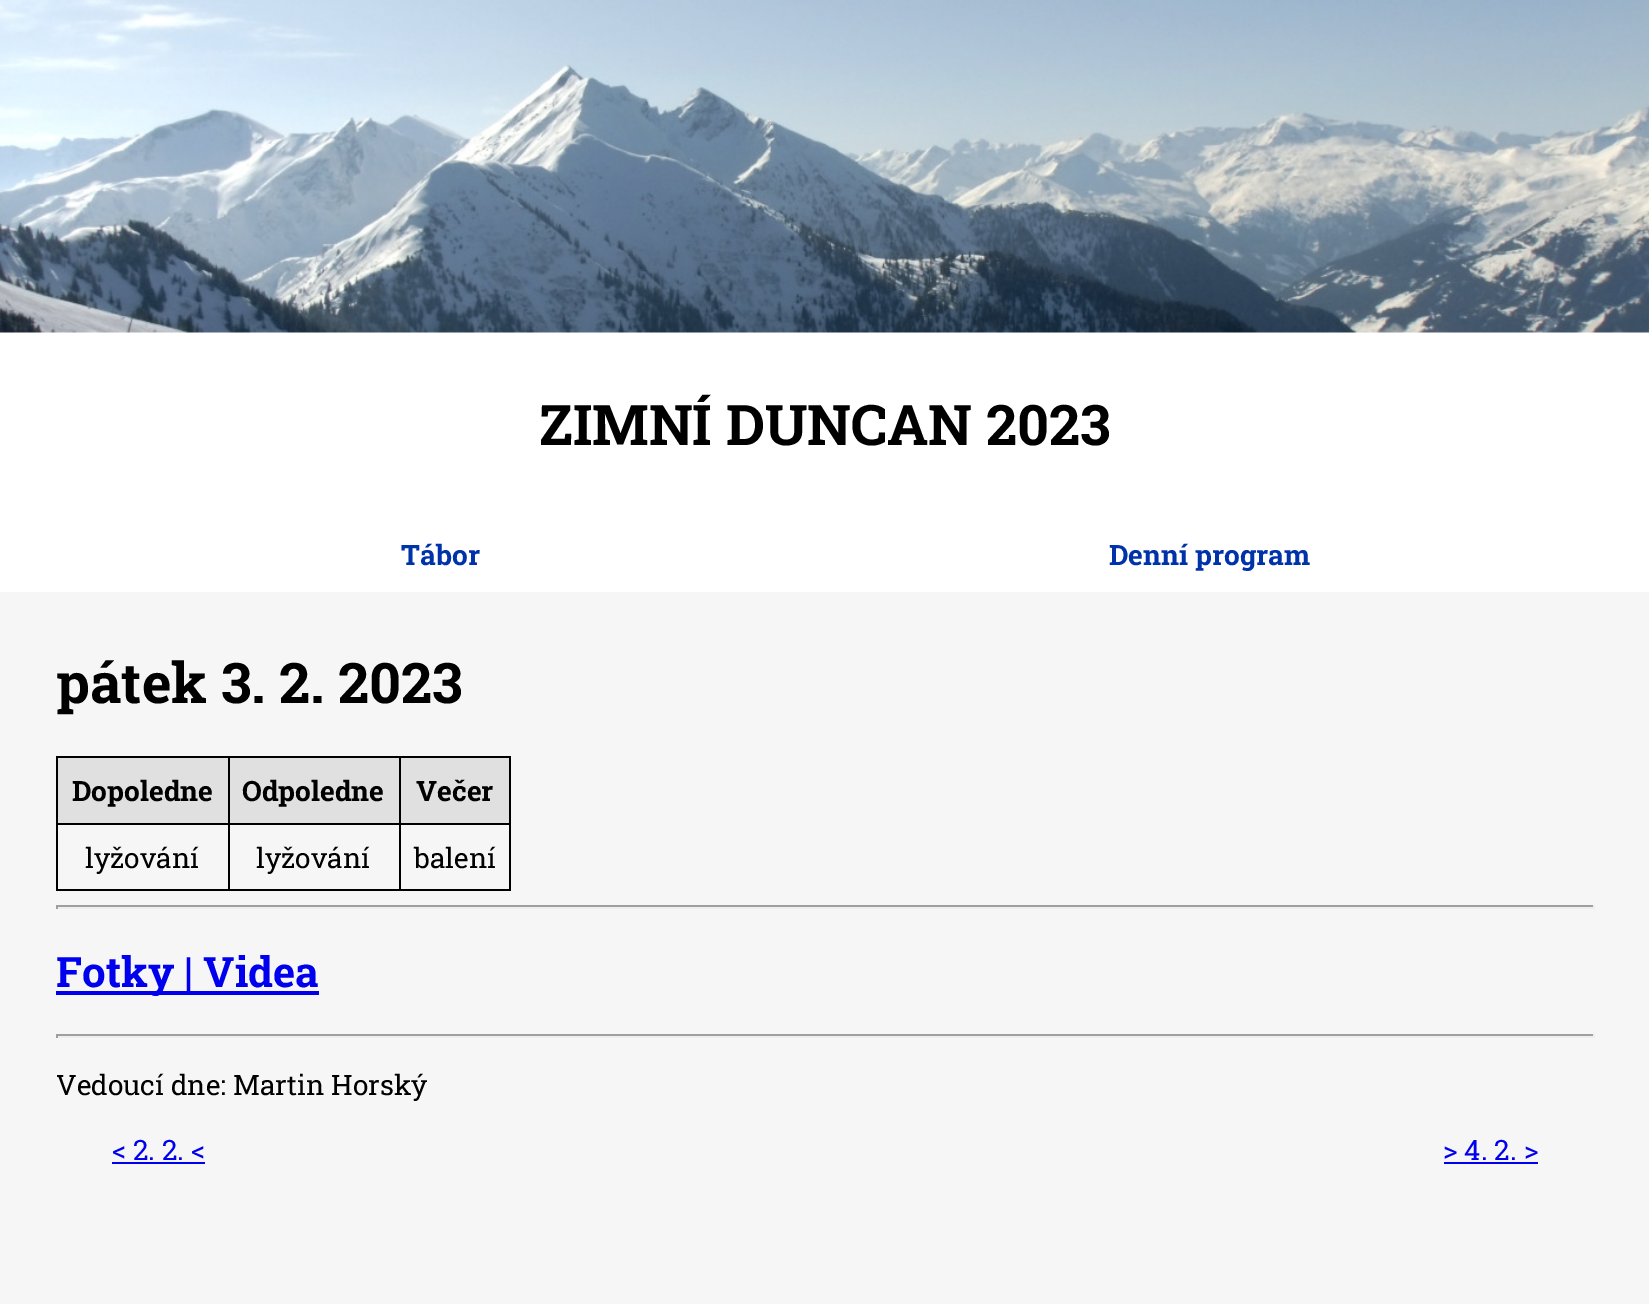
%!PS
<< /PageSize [1649 1304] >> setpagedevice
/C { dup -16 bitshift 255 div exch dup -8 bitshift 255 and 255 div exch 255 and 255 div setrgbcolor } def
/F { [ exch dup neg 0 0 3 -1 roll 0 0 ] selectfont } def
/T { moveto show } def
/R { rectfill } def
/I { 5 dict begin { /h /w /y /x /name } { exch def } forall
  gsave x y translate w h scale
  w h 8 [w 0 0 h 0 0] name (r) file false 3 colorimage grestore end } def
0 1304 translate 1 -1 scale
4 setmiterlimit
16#FFFFFF C
0 0 1649 1304 R
(1.rgb) 0 0 1649 333 I
/RobotoSlab-Bold 56 F
16#000000 C
(ZIMNÍ DUNCAN 2023) 539 445 T
/RobotoSlab-Bold 28 F
16#0033AA C
(Tábor) 401 565 T
(Denní program) 1109 565 T
16#F6F6F6 C
0 592 1649 712 R
/RobotoSlab-Bold 56 F
16#000000 C
(pátek 3. 2. 2023) 56 703 T
16#E0E0E0 C
58 758 170 65 R
16#000000 C
399 756 112 2 R
399 823 112 2 R
509 823 2 68 R
399 889 112 2 R
399 823 2 68 R
228 823 173 2 R
399 756 2 68 R
228 756 173 2 R
228 889 173 2 R
228 823 2 68 R
56 823 173 2 R
228 756 2 68 R
56 756 173 2 R
56 889 173 2 R
56 823 2 68 R
56 756 2 68 R
/RobotoSlab-Bold 28 F
(Dopoledne) 72 801 T
16#E0E0E0 C
230 758 169 65 R
16#000000 C
(Odpoledne) 242 801 T
16#E0E0E0 C
401 758 108 65 R
16#000000 C
509 756 2 68 R
(Večer) 416 801 T
/RobotoSlab-Regular 28 F
(lyžování) 85 868 T
(lyžování) 256 868 T
(balení) 414 868 T
16#9F9F9F C
56 905 1538 2 R
16#EEEEEE C
1593 905 2 4 R
56 907 1538 2 R
16#9F9F9F C
56 905 2 4 R
16#0000EE C
56 991 117 4 R
/RobotoSlab-Bold 42 F
(Fotky) 56 987 T
173 991 146 4 R
(| Videa) 184 987 T
16#9F9F9F C
56 1034 1538 2 R
16#EEEEEE C
1593 1034 2 4 R
56 1036 1538 2 R
16#9F9F9F C
56 1034 2 4 R
/RobotoSlab-Regular 28 F
16#000000 C
(Vedoucí dne: Martin Horský) 56 1095 T
16#0000EE C
(< 2. 2. <) 112 1160 T
112 1162 93 2 R
(> 4. 2. >) 1443 1160 T
1444 1162 94 2 R
showpage
